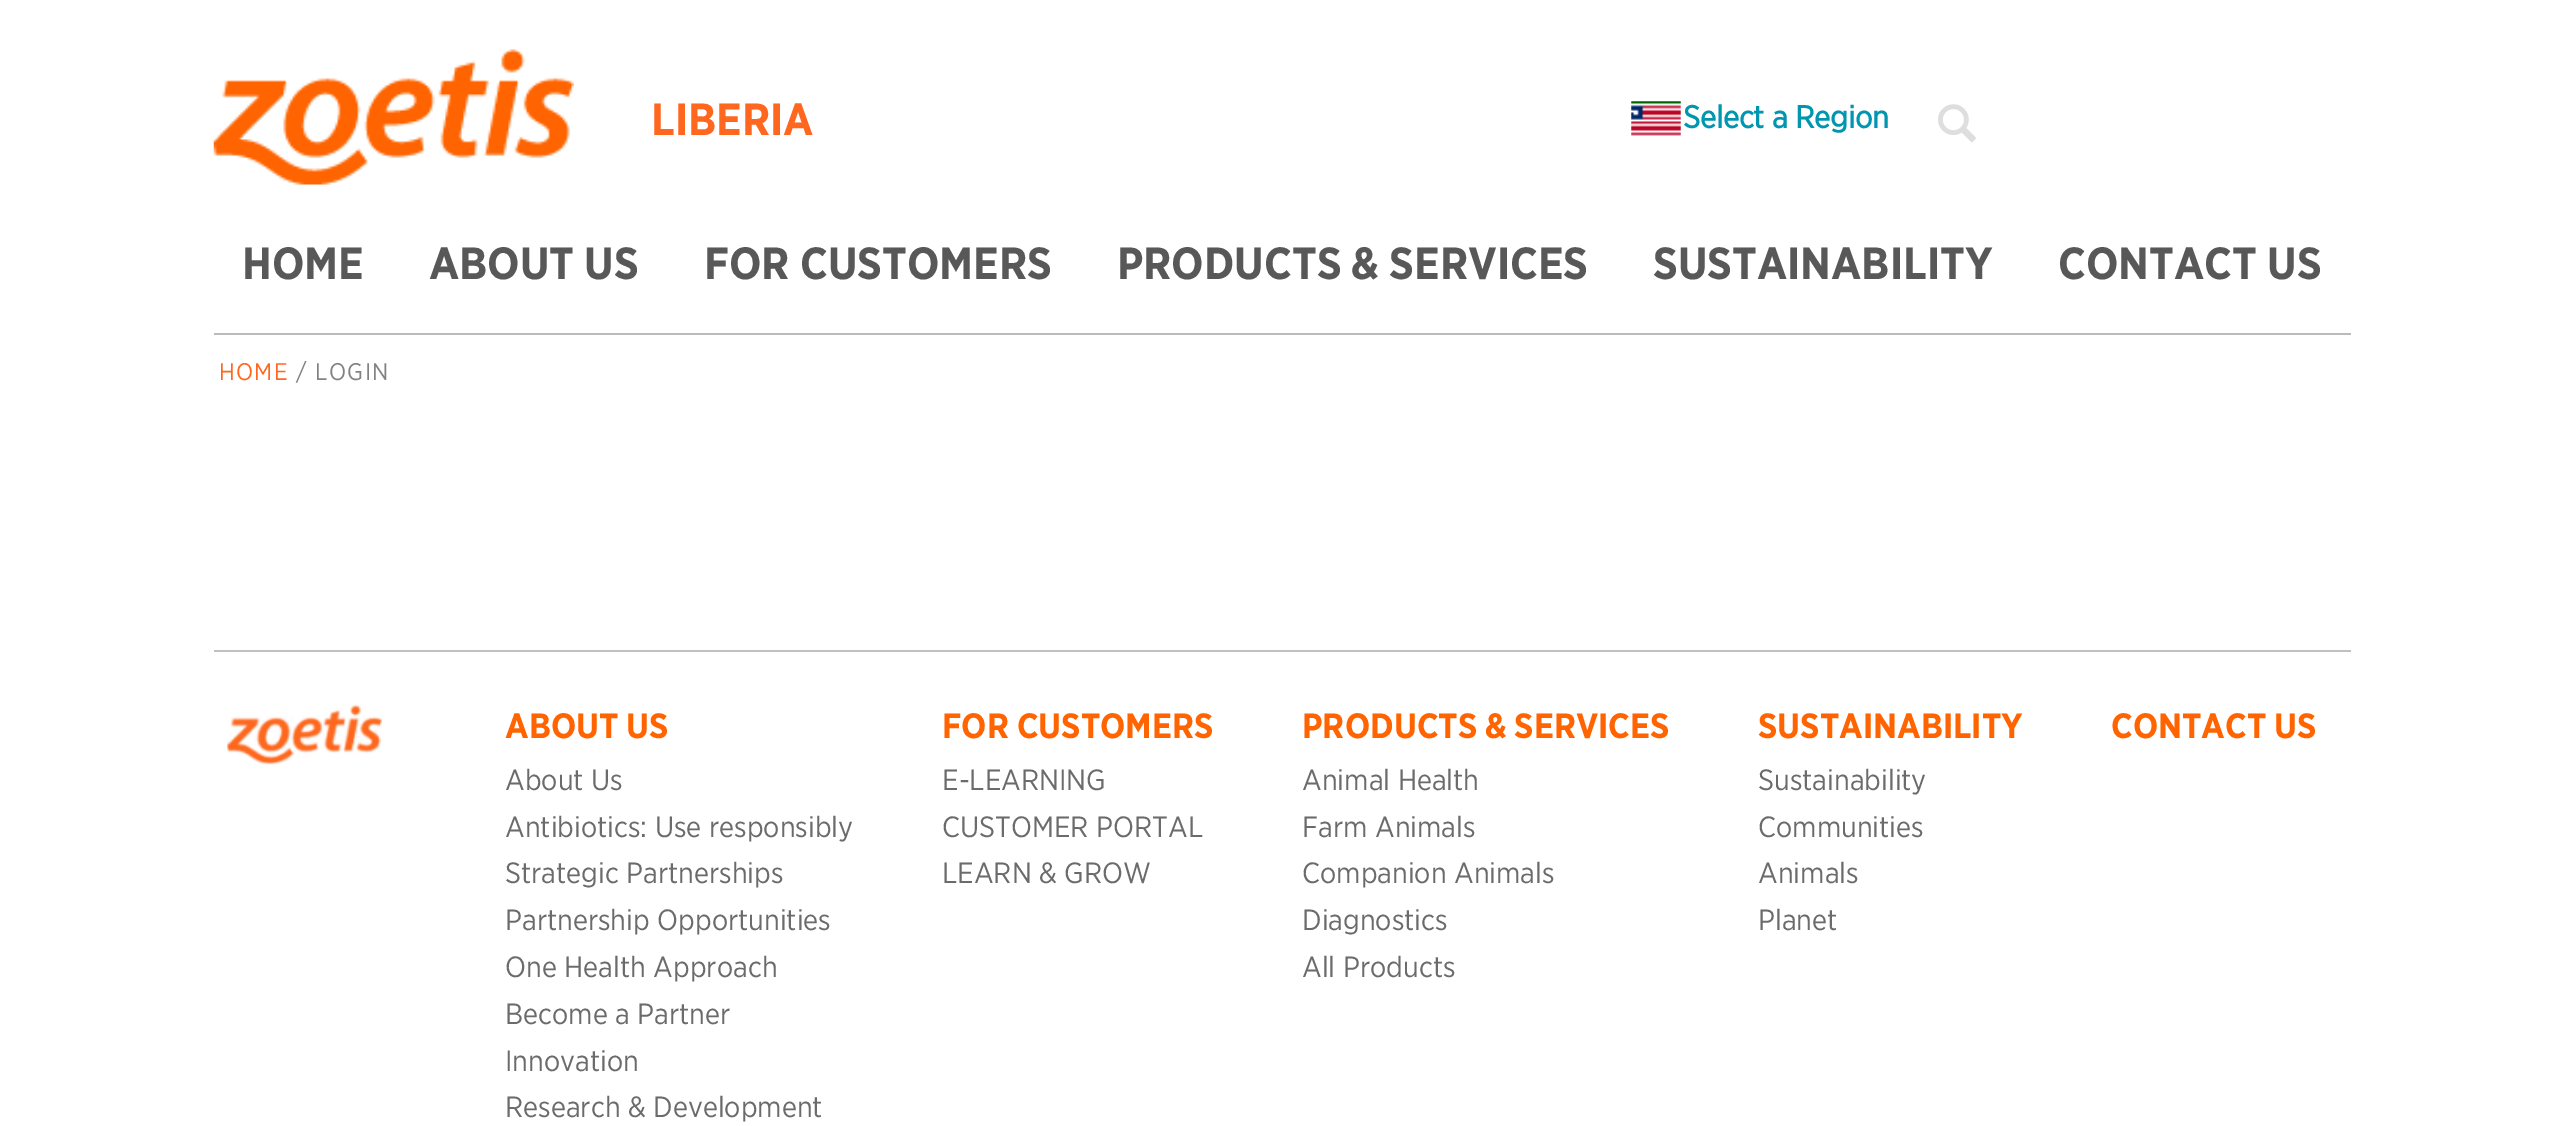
%!PS
<< /PageSize [2561 1126] >> setpagedevice
/m/moveto load def
/C { dup -16 bitshift 255 div exch dup -8 bitshift 255 and 255 div exch 255 and 255 div setrgbcolor } def
/F { [ exch dup neg 0 0 3 -1 roll 0 0 ] selectfont } def
/T { moveto show } def
/R { rectfill } def
/I { 5 dict begin { /h /w /y /x /name } { exch def } forall
  gsave x y translate w h scale
  w h 8 [w 0 0 h 0 0] name (r) file false 3 colorimage grestore end } def
0 1126 translate 1 -1 scale
4 setmiterlimit
16#FFFFFF C
0 0 2561 1126 R
(1.rgb) 213 49 361 136 I
/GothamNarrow-Bold 45 F
16#FF671F C
(LIBERIA) 651 135 T
(2.rgb) 1631 101 50 35 I
/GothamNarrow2-Bold 31.5 F
16#0096AF C
1683 128 m -.3 0 (Select a Region) ashow
(3.rgb) 1938 104 38 39 I
16#BBBBBB C
214 333 2137 2 R
/GothamNarrow-Bold 45 F
16#585858 C
(HOME) 242 279 T
(ABOUT US) 429 279 T
(FOR CUSTOMERS) 704 279 T
(PRODUCTS & SERVICES) 1117 279 T
(SUSTAINABILITY) 1653 279 T
(CONTACT US) 2058 279 T
/GothamNarrow-Regular 24 F
16#FF671F C
219 380 m 1.25 0 (HOME) ashow
16#828282 C
296 380 m 1.25 0 (/ LOGIN) ashow
16#C0C0C0 C
214 650 2137 2 R
(4.rgb) 227 704 155 61 I
/GothamNarrow-Bold 35.1 F
16#FF6400 C
(ABOUT US) 505 738 T
/GothamNarrow-Regular 29.25 F
16#6B6B6B C
(About Us) 505 790 T
(Antibiotics: Use responsibly) 505 837 T
(Strategic Partnerships) 505 883 T
(Partnership Opportunities) 505 930 T
(One Health Approach) 505 977 T
(Become a Partner) 505 1024 T
(Innovation) 505 1071 T
(Research & Development) 505 1117 T
/GothamNarrow-Bold 35.1 F
16#FF6400 C
(FOR CUSTOMERS) 942 738 T
/GothamNarrow-Regular 29.25 F
16#6B6B6B C
(E-LEARNING) 942 790 T
(CUSTOMER PORTAL) 942 837 T
(LEARN & GROW) 942 883 T
/GothamNarrow-Bold 35.1 F
16#FF6400 C
(PRODUCTS & SERVICES) 1302 738 T
/GothamNarrow-Regular 29.25 F
16#6B6B6B C
(Animal Health) 1302 790 T
(Farm Animals) 1302 837 T
(Companion Animals) 1302 883 T
(Diagnostics) 1302 930 T
(All Products) 1302 977 T
/GothamNarrow-Bold 35.1 F
16#FF6400 C
(SUSTAINABILITY) 1758 738 T
/GothamNarrow-Regular 29.25 F
16#6B6B6B C
(Sustainability) 1758 790 T
(Communities) 1758 837 T
(Animals) 1758 883 T
(Planet) 1758 930 T
/GothamNarrow-Bold 35.1 F
16#FF6400 C
(CONTACT US) 2111 738 T
showpage
